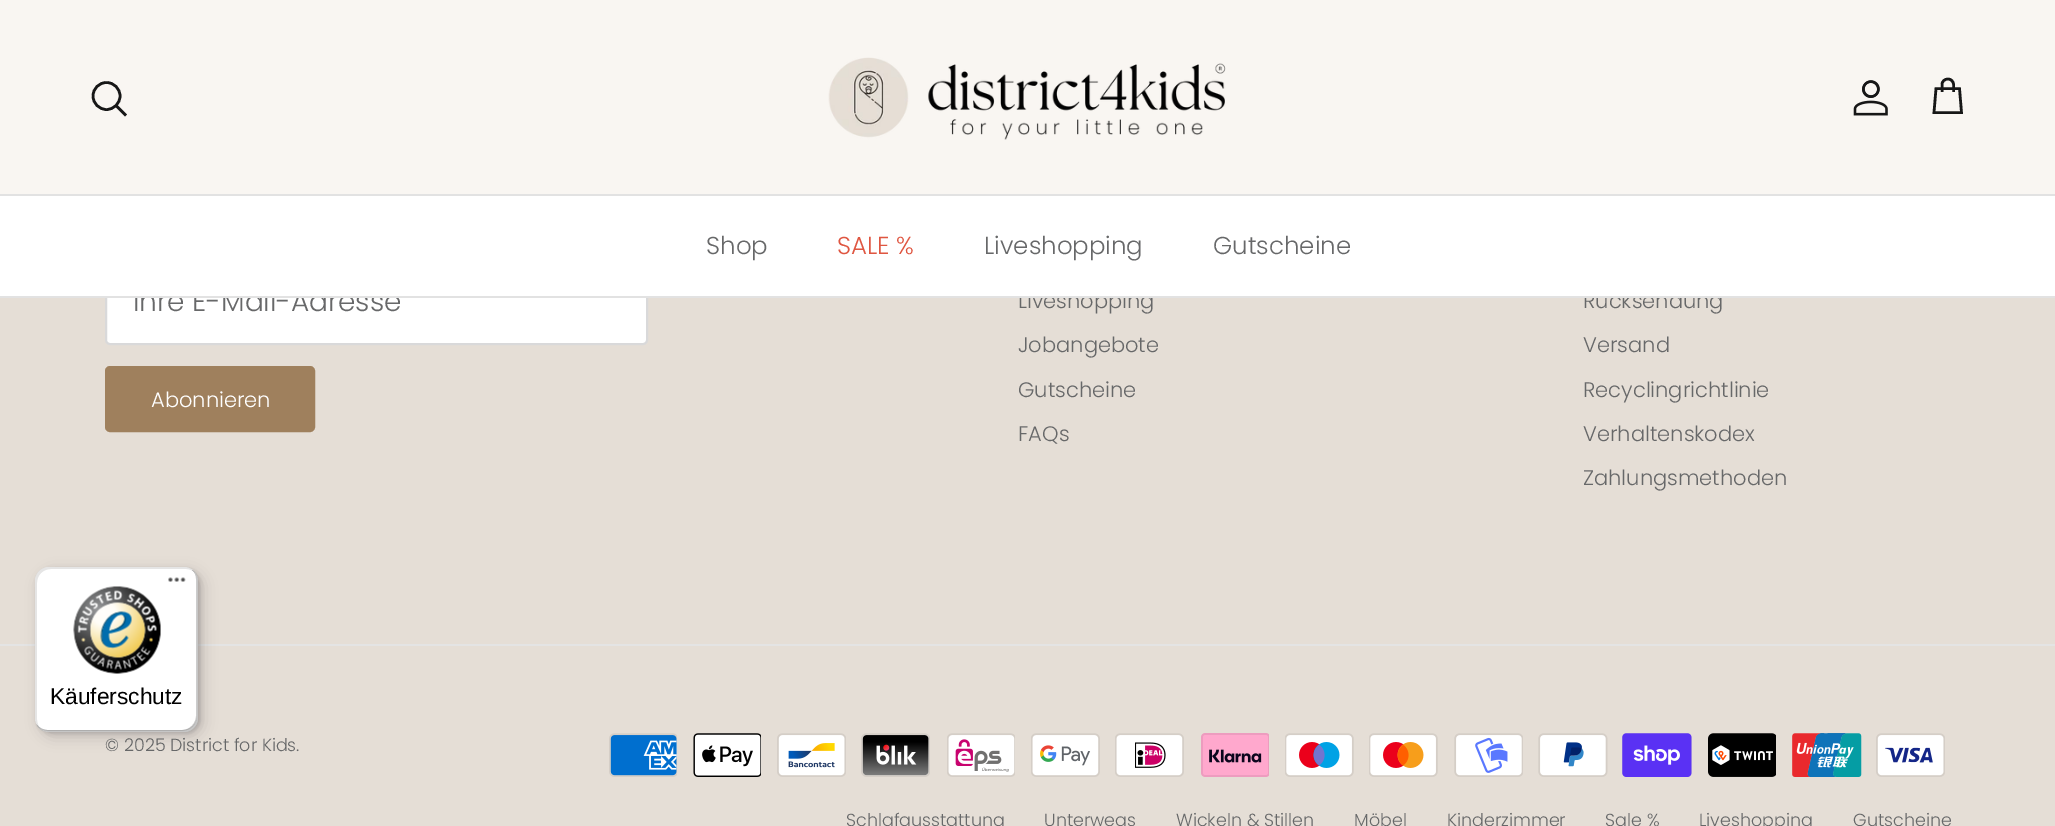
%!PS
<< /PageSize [2055 826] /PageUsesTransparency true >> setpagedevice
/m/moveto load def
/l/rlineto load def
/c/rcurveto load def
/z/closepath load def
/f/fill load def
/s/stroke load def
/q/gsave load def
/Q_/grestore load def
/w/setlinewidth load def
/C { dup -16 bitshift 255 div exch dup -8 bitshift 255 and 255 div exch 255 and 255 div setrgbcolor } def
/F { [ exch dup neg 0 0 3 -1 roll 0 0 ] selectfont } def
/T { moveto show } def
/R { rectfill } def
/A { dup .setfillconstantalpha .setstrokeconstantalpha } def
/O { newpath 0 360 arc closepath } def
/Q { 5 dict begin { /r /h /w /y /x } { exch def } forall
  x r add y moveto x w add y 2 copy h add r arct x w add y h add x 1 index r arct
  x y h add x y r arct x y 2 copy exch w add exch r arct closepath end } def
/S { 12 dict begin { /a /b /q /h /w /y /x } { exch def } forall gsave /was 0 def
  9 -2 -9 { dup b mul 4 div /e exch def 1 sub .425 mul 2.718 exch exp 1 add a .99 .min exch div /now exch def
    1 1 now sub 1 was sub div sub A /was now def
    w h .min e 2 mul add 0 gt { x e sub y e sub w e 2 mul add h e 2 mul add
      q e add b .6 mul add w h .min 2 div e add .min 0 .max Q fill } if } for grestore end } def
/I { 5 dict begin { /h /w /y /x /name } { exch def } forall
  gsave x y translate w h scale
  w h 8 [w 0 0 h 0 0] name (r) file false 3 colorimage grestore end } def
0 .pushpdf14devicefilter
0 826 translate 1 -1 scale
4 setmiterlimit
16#E5DED6 C
0 0 2055 826 R
16#F9F6F2 C
0 0 2055 194 R
16#E2E2E2 C
0 194 2055 2 R
16#171717 C
2.6 w
106.5 96 13.5 O s
2 setlinecap
117 106.5 m 8 8 l s
(1.rgb) 828 57 398 83 I
(2.rgb) 1853 80 35 36 I
0 setlinecap
1953.5 92 m 0 -7.5 l 0 -3 -2.5 -5.5 -5.5 -5.5 c -3.5 0 -6 2.5 -6 5.5 c 0 7.5 l 1936 88.5 m 23.5 0 l 2 24 l -27.5 0 l z s
16#FFFFFF C
106 262 541 82 4 Q q f Q_
16#D9D9DA C
2 w
s
/Poppins-Light 28 F
16#676869 C
(Ihre E-Mail-Adresse) 133 311 T
/Poppins-Light 21 F
(Liveshopping) 1018 308 T
(Rücksendung) 1583 308 T
16#E2E2E2 C
0 296 2055 2 R
16#FFFFFF C
0 196 2055 100 R
/Poppins-Light 24.5 F
16#676869 C
(Shop) 706 254 T
16#DF5641 C
(SALE %) 837 254 T
16#676869 C
(Liveshopping) 984 254 T
(Gutscheine) 1213 254 T
16#9F805D C
106 367 208 64 4 Q q f Q_
s
/Poppins-Light 21 F
16#FFFFFF C
(Abonnieren) 151 407 T
16#676869 C
(Jobangebote) 1018 352 T
(Gutscheine) 1018 397 T
(FAQs) 1018 441 T
(Versand) 1583 352 T
(Recyclingrichtlinie) 1583 397 T
(Verhaltenskodex) 1583 441 T
(Zahlungsmethoden) 1583 485 T
16#E4E4E4 C
0 644 2055 2 R
/Poppins-Light 17.5 F
16#676869 C
(© 2025 District for Kids.) 105 751 T
(3.rgb) 609 733 68 44 I
(4.rgb) 693 733 68 44 I
(5.rgb) 777 733 69 44 I
(6.rgb) 861 733 69 44 I
(7.rgb) 947 733 68 44 I
(8.rgb) 1031 733 69 44 I
(9.rgb) 1115 733 69 44 I
(10.rgb) 1201 733 68 44 I
(11.rgb) 1285 733 69 44 I
(12.rgb) 1369 733 69 44 I
(13.rgb) 1454 733 69 44 I
(14.rgb) 1538 733 70 44 I
(15.rgb) 1622 733 70 44 I
(16.rgb) 1708 733 68 44 I
(17.rgb) 1792 733 70 44 I
(18.rgb) 1876 733 69 44 I
(Schlafausstattung) 846 826 T
(Unterwegs) 1044 826 T
(Wickeln & Stillen) 1176 826 T
(Möbel) 1354 826 T
(Kinderzimmer) 1447 826 T
(Sale %) 1605 826 T
(Liveshopping) 1699 826 T
(Gutscheine) 1853 826 T
16#000000 C
40 572 163 165 14 7 .15 S
37 569 163 164 14 2 .15 S
16#FFFFFF C
35 567 163 165 14 Q f
0.1 A
16#000000 C
51 569 m 135 0 l 3 0 7 1 9 4 c -2 -4 -6 -6 -11 -6 c -135 0 l -8 0 -14 6 -14 14 c 0 137 l 0 6 3 10 8 13 c -4 -3 -6 -7 -6 -12 c 0 -136 l 0 -8 6 -14 14 -14 c z f
0.2 A
37 725 m 2 4 7 7 12 7 c 135 0 l 8 0 14 -6 14 -14 c 0 -137 l 0 -5 -2 -9 -6 -11 c 3 2 4 6 4 9 c 0 137 l 0 7 -6 14 -14 14 c -135 0 l -4 0 -7 -2 -10 -5 c z f
16#323232 C
36 724 m 3 5 7 8 13 8 c 135 0 l 8 0 14 -6 14 -14 c 0 -137 l 0 -5 -2 -9 -6 -11 c 3 2 5 6 5 10 c 0 136 l 0 8 -7 14 -14 14 c -135 0 l -5 0 -9 -2 -12 -6 c z f
0.3 A
16#FFFFFF C
38 726 m 2 4 6 6 11 6 c 135 0 l 8 0 14 -6 14 -14 c 0 -137 l 0 -4 -1 -7 -4 -9 c 2 2 3 5 3 8 c 0 137 l 0 7 -6 14 -14 14 c -135 0 l -4 0 -8 -2 -10 -5 c z f
1 A
(19.rgb) 168 577 18 5 I
(20.rgb) 73 586 88 88 I
/LiberationSans-Regular 22.75 F
16#000000 C
(Käuferschutz) 50 704 T
.poppdf14devicefilter showpage
